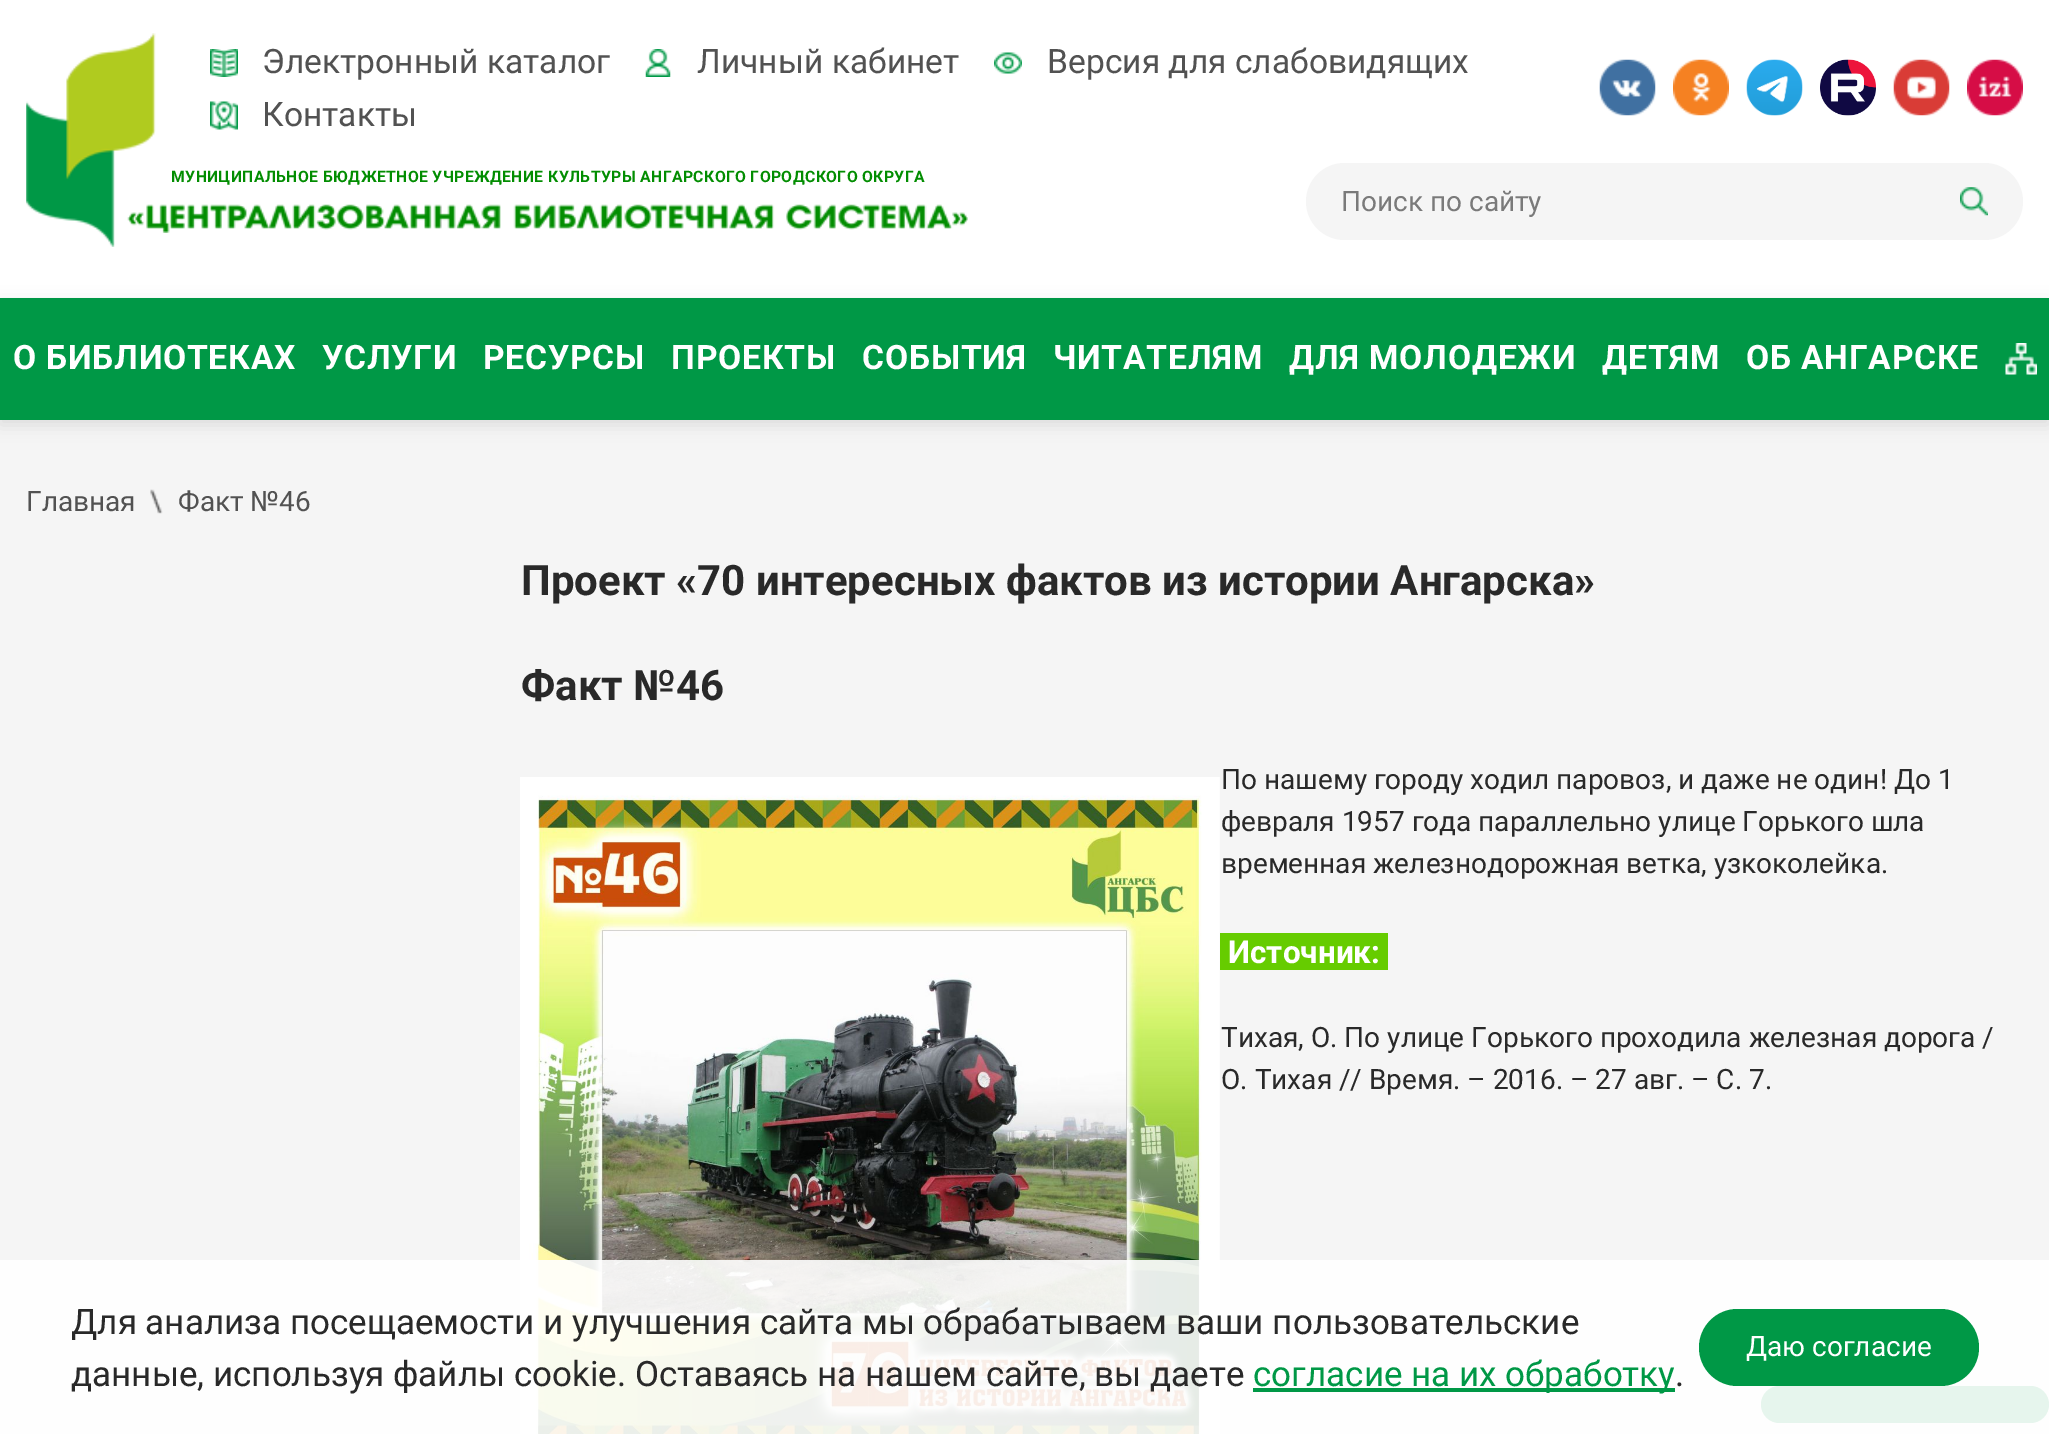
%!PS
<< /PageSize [2049 1434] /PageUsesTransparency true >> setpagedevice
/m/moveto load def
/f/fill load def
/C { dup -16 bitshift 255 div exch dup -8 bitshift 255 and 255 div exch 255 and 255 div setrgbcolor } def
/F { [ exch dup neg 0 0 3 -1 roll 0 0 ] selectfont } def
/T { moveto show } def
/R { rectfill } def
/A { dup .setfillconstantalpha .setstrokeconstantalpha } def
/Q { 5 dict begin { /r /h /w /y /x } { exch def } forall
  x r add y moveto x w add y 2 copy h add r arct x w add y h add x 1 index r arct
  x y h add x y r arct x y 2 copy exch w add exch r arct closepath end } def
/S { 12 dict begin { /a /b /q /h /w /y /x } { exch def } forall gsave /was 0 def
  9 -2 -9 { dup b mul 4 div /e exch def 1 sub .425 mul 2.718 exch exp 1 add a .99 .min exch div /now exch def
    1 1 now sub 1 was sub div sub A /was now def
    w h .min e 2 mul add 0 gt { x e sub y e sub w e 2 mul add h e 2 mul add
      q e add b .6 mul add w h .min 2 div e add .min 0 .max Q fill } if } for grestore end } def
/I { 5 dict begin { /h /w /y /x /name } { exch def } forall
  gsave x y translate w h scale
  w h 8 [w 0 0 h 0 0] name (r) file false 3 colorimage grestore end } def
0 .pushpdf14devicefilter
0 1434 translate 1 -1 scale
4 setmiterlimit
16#F5F5F5 C
0 0 2049 1434 R
16#FFFFFF C
0 0 2049 298 R
(1.rgb) 210 49 28 28 I
/Roboto-Regular 33.6 F
16#525252 C
(Электронный каталог) 262 73 T
(2.rgb) 645 49 26 28 I
(Личный кабинет) 697 73 T
(3.rgb) 994 52 28 22 I
(Версия для слабовидящих) 1047 73 T
(4.rgb) 210 101 28 29 I
(Контакты) 262 126 T
(5.rgb) 1599 59 57 57 I
(6.rgb) 1673 59 56 57 I
(7.rgb) 1746 59 57 57 I
(8.rgb) 1820 59 56 57 I
(9.rgb) 1893 59 57 57 I
(10.rgb) 1967 59 56 57 I
(11.rgb) 26 33 130 214 I
/Roboto-Bold 15.75 F
16#028D01 C
171 182 m .4 0 (МУНИЦИПАЛЬНОЕ БЮДЖЕТНОЕ УЧРЕЖДЕНИЕ КУЛЬТУРЫ АНГАРСКОГО ГОРОДСКОГО ОКРУГА) ashow
(12.rgb) 127 204 841 29 I
16#F5F5F5 C
1306 163 717 77 38.5 Q f
/Roboto-Regular 28 F
16#7A7A7A C
(Поиск по сайту) 1341 211 T
(13.rgb) 1960 187 28 29 I
16#000000 C
0 303 2049 122 0 8 .1 S
16#009846 C
0 298 2049 122 R
/Roboto-Bold 33.6 F
16#FFFFFF C
13 369 m .8 0 (О БИБЛИОТЕКАХ) ashow
322 369 m .8 0 (УСЛУГИ) ashow
483 369 m .8 0 (РЕСУРСЫ) ashow
671 369 m .8 0 (ПРОЕКТЫ) ashow
862 369 m .8 0 (СОБЫТИЯ) ashow
1053 369 m .8 0 (ЧИТАТЕЛЯМ) ashow
1289 369 m .8 0 (ДЛЯ МОЛОДЕЖИ) ashow
1602 369 m .8 0 (ДЕТЯМ) ashow
1746 369 m .8 0 (ОБ АНГАРСКЕ) ashow
(14.rgb) 2005 343 32 32 I
/Roboto-Regular 28 F
16#525252 C
(Главная) 26 511 T
(15.rgb) 150 489 13 25 I
(Факт №46) 178 511 T
/Roboto-Bold 42 F
16#292929 C
(Проект «70 интересных фактов из истории Ангарска») 521 595 T
(Факт №46) 521 700 T
(16.rgb) 520 777 700 657 I
/Roboto-Regular 28 F
(По нашему городу ходил паровоз, и даже не один! До 1) 1221 789 T
(февраля 1957 года параллельно улице Горького шла) 1221 831 T
(временная железнодорожная ветка, узкоколейка.) 1221 873 T
16#66CC00 C
1220 933 168 37 R
/Roboto-Bold 31.5 F
16#FFFFFF C
(Источник:) 1228 963 T
/Roboto-Regular 28 F
16#292929 C
(Тихая, О. По улице Горького проходила железная дорога /) 1221 1047 T
(О. Тихая // Время. – 2016. – 27 авг. – С. 7.) 1221 1089 T
16#009846 C
1761 1386 288 37 18.5 Q f
0.9 A
16#FFFFFF C
0 1260 2049 174 R
/Roboto-Regular 35 F
1 A
16#292929 C
(Для анализа посещаемости и улучшения сайта мы обрабатываем ваши пользовательские) 71 1334 T
(данные, используя файлы cookie. Оставаясь на нашем сайте, вы даете) 71 1386 T
16#009846 C
1253 1388 422 4 R
(согласие на их обработку) 1253 1386 T
16#292929 C
(.) 1675 1386 T
16#009846 C
1699 1309 280 77 38.5 Q f
/Roboto-Regular 28 F
16#FFFFFF C
(Даю согласие) 1746 1356 T
.poppdf14devicefilter showpage
